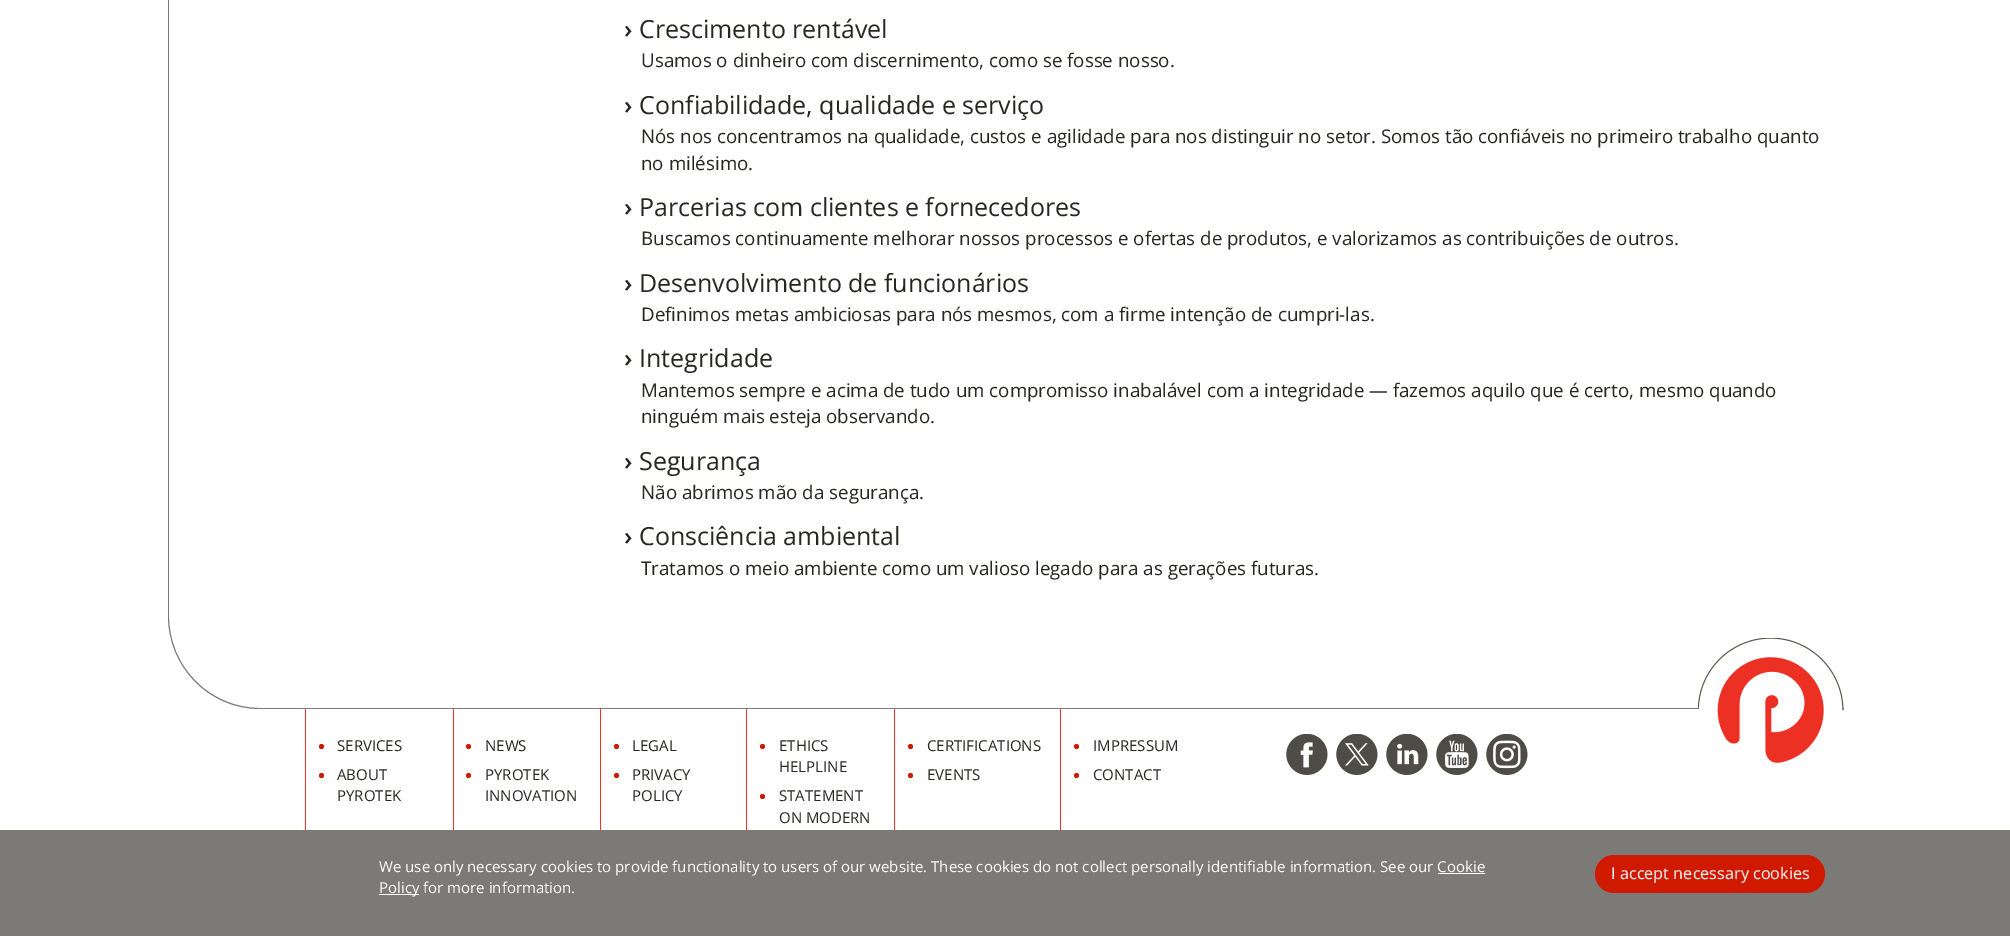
%!PS
<< /PageSize [2010 936] >> setpagedevice
/m/moveto load def
/l/rlineto load def
/c/rcurveto load def
/z/closepath load def
/f/fill load def
/C { dup -16 bitshift 255 div exch dup -8 bitshift 255 and 255 div exch 255 and 255 div setrgbcolor } def
/F { [ exch dup neg 0 0 3 -1 roll 0 0 ] selectfont } def
/T { moveto show } def
/R { rectfill } def
/O { newpath 0 360 arc closepath } def
/Q { 5 dict begin { /r /h /w /y /x } { exch def } forall
  x r add y moveto x w add y 2 copy h add r arct x w add y h add x 1 index r arct
  x y h add x y r arct x y 2 copy exch w add exch r arct closepath end } def
/I { 5 dict begin { /h /w /y /x /name } { exch def } forall
  gsave x y translate w h scale
  w h 8 [w 0 0 h 0 0] name (r) file false 3 colorimage grestore end } def
0 936 translate 1 -1 scale
4 setmiterlimit
16#FFFFFF C
0 0 2010 936 R
16#7C7A76 C
168 -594 m 1676 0 l 0 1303 l -1584 0 l -51 0 -92 -42 -92 -93 c z 169 -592 m 1675 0 l 0 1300 l -1584 0 l -50 0 -91 -41 -91 -92 c z eofill
/OpenSans-SemiBold 25 F
16#262622 C
(›) 624 38 T
/OpenSans-Regular 25 F
(Crescimento rentável) 639 38 T
/OpenSans-Regular 18.75 F
(Usamos o dinheiro com discernimento, como se fosse nosso.) 641 67 T
/OpenSans-SemiBold 25 F
(›) 624 114 T
/OpenSans-Regular 25 F
(Confiabilidade, qualidade e serviço) 639 114 T
/OpenSans-Regular 18.75 F
(Nós nos concentramos na qualidade, custos e agilidade para nos distinguir no setor. Somos tão confiáveis no primeiro trabalho quanto) 641 143 T
(no milésimo.) 641 170 T
/OpenSans-SemiBold 25 F
(›) 624 216 T
/OpenSans-Regular 25 F
(Parcerias com clientes e fornecedores) 639 216 T
/OpenSans-Regular 18.75 F
(Buscamos continuamente melhorar nossos processos e ofertas de produtos, e valorizamos as contribuições de outros.) 641 245 T
/OpenSans-SemiBold 25 F
(›) 624 292 T
/OpenSans-Regular 25 F
(Desenvolvimento de funcionários) 639 292 T
/OpenSans-Regular 18.75 F
(Definimos metas ambiciosas para nós mesmos, com a firme intenção de cumpri-las.) 641 321 T
/OpenSans-SemiBold 25 F
(›) 624 367 T
/OpenSans-Regular 25 F
(Integridade) 639 367 T
/OpenSans-Regular 18.75 F
(Mantemos sempre e acima de tudo um compromisso inabalável com a integridade — fazemos aquilo que é certo, mesmo quando) 641 397 T
(ninguém mais esteja observando.) 641 423 T
/OpenSans-SemiBold 25 F
(›) 624 470 T
/OpenSans-Regular 25 F
(Segurança) 639 470 T
/OpenSans-Regular 18.75 F
(Não abrimos mão da segurança.) 641 499 T
/OpenSans-SemiBold 25 F
(›) 624 545 T
/OpenSans-Regular 25 F
(Consciência ambiental) 639 545 T
/OpenSans-Regular 18.75 F
(Tratamos o meio ambiente como um valioso legado para as gerações futuras.) 641 575 T
16#EE3124 C
305 709 1 121 R
16#D01A00 C
321.5 746.5 2.5 O f
/OpenSans-Regular 15 F
16#262622 C
(SERVICES) 337 751 T
16#D01A00 C
321.5 775.5 2.5 O f
16#262622 C
(ABOUT) 337 780 T
(PYROTEK) 337 801 T
16#EE3124 C
453 709 1 121 R
16#D01A00 C
468.5 746.5 2.5 O f
16#262622 C
(NEWS) 485 751 T
16#D01A00 C
468.5 775.5 2.5 O f
16#262622 C
(PYROTEK) 485 780 T
(INNOVATION) 485 801 T
16#EE3124 C
600 709 1 121 R
16#D01A00 C
616.5 746.5 2.5 O f
16#262622 C
(LEGAL) 632 751 T
16#D01A00 C
616.5 775.5 2.5 O f
16#262622 C
(PRIVACY) 632 780 T
(POLICY) 632 801 T
16#EE3124 C
746 709 1 121 R
16#D01A00 C
762.5 746.5 2.5 O f
16#262622 C
(ETHICS) 779 751 T
(HELPLINE) 779 772 T
16#D01A00 C
762.5 796.5 2.5 O f
16#262622 C
(STATEMENT) 779 801 T
(ON MODERN) 779 823 T
16#EE3124 C
894 709 1 121 R
16#D01A00 C
910.5 746.5 2.5 O f
16#262622 C
(CERTIFICATIONS) 927 751 T
16#D01A00 C
910.5 775.5 2.5 O f
16#262622 C
(EVENTS) 927 780 T
16#EE3124 C
1060 709 1 121 R
16#D01A00 C
1076.5 746.5 2.5 O f
16#262622 C
(IMPRESSUM) 1093 751 T
16#D01A00 C
1076.5 775.5 2.5 O f
16#262622 C
(CONTACT) 1093 780 T
(1.rgb) 1286 734 42 41 I
(2.rgb) 1336 734 42 41 I
(3.rgb) 1386 734 42 41 I
(4.rgb) 1436 734 42 41 I
(5.rgb) 1486 734 42 41 I
(6.rgb) 1698 638 146 125 I
16#7C7A76 C
0 830 2010 106 R
16#FFFFFF C
(We use only necessary cookies to provide functionality to users of our website. These cookies do not collect personally identifiable information. See our Cookie) 379 872 T
379 894 40 1 R
(Policy for more information.) 379 893 T
1438 873 47 1 R
16#D01A00 C
1595 855 230 38 19 Q f
/OpenSans-Regular 16.25 F
16#FFFFFF C
(I accept necessary cookies) 1611 879 T
showpage
